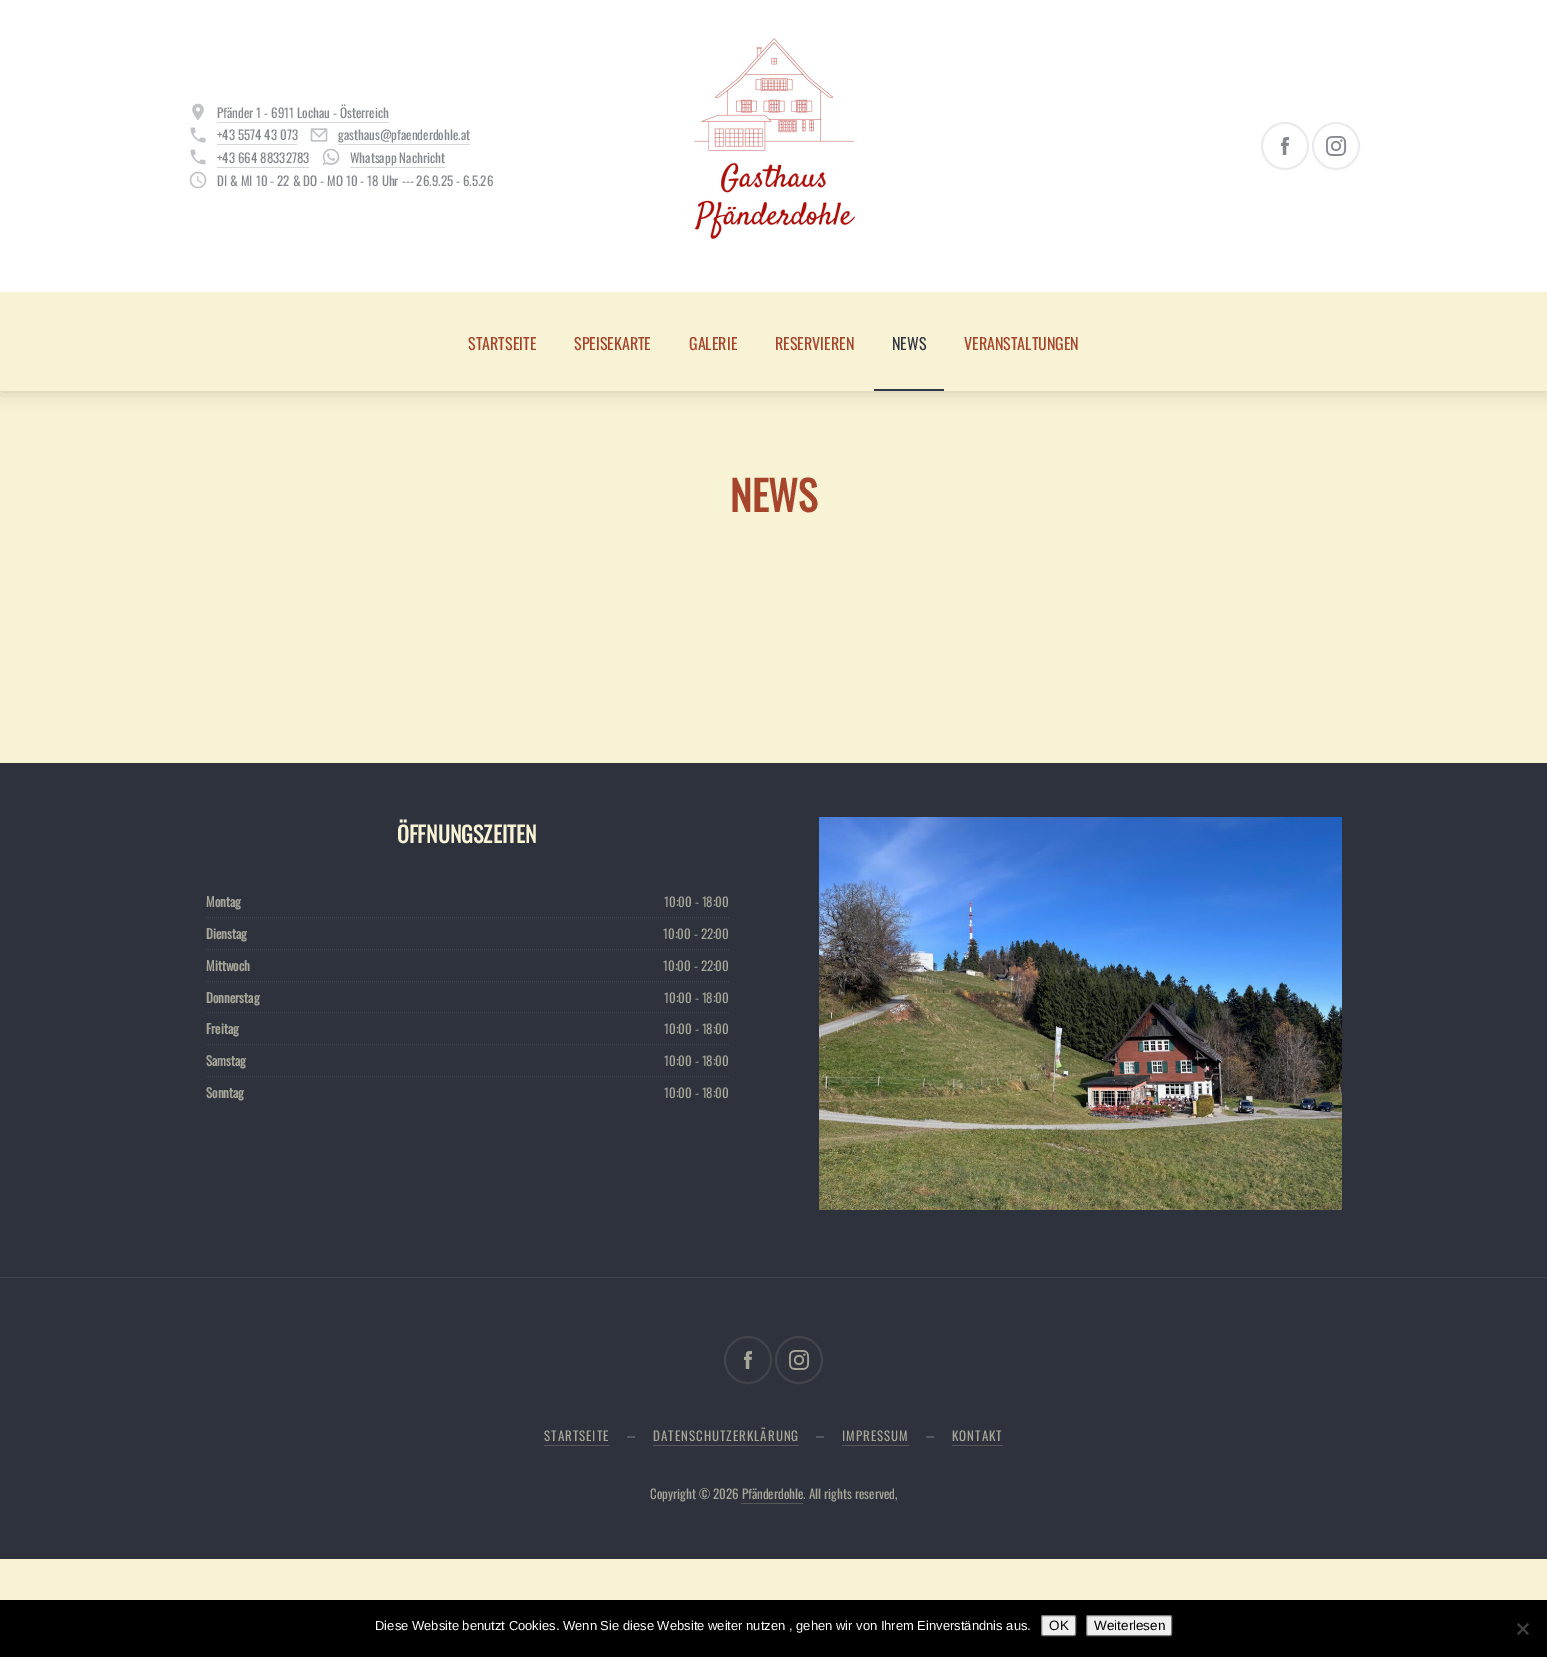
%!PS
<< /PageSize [1547 1657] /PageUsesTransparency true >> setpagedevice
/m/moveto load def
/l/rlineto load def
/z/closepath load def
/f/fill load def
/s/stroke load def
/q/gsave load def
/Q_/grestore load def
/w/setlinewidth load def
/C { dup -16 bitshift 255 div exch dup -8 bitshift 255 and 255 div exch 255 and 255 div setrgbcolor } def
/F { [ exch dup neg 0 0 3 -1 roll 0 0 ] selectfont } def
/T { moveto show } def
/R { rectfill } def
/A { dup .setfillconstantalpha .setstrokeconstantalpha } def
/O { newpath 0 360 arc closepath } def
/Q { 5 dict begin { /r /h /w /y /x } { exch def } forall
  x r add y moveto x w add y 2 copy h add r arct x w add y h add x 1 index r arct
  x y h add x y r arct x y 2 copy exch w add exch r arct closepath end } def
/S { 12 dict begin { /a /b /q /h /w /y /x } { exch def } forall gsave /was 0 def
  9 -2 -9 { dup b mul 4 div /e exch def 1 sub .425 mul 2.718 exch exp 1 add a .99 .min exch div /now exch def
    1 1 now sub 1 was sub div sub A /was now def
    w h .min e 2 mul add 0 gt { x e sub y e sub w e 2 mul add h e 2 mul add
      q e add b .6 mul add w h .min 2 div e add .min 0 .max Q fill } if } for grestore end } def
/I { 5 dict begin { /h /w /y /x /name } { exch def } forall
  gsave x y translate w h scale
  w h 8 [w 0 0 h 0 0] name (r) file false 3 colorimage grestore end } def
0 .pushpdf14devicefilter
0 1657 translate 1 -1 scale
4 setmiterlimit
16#F9F3D6 C
0 0 1547 1657 R
16#08080E C
0 0 1547 391 0 9 .2 S
16#FFFFFF C
0 0 1547 292 R
(1.rgb) 192 103 12 17 I
/Oswald-Regular 13 F
16#84878D C
(Pfänder 1 - 6911 Lochau - Österreich) 217 118 T
16#D6D7D9 C
217 122 172 1 R
(2.rgb) 190 127 16 16 I
16#84878D C
(+43 5574 43 073) 217 140 T
16#D6D7D9 C
217 144 80 1 R
(3.rgb) 310 128 18 14 I
16#84878D C
(gasthaus@pfaenderdohle.at) 338 140 T
16#D6D7D9 C
338 144 132 1 R
(2.rgb) 190 149 16 16 I
16#84878D C
(+43 664 88332783) 217 163 T
16#D6D7D9 C
217 167 92 1 R
(4.rgb) 322 148 18 18 I
16#84878D C
(Whatsapp Nachricht) 350 163 T
16#D6D7D9 C
350 167 95 1 R
(5.rgb) 189 171 18 18 I
16#84878D C
(DI & MI 10 - 22 & DO - MO 10 - 18 Uhr --- 26.9.25 - 6.5.26) 217 186 T
(6.rgb) 694 38 163 204 I
16#EBEBEC C
2 w
1285 146 23 O s
(7.rgb) 1281 137 8 18 I
1336 146 23 O s
(8.rgb) 1326 136 21 20 I
16#F9F3D6 C
0 292 1547 99 R
/Oswald-Regular 16 F
16#A6442C C
(STARTSEITE) 468 350 T
(SPEISEKARTE) 574 350 T
(GALERIE) 689 350 T
(RESERVIEREN) 775 350 T
16#323741 C
(NEWS) 892 350 T
874 389 70 2 R
16#A6442C C
(VERANSTALTUNGEN) 964 350 T
/Oswald-Bold 41 F
(NEWS) 730 512 T
16#2D323C C
0 763 1547 796 R
16#41454B C
0 1277 1547 1 R
/Oswald-Bold 22 F
16#F9F3D6 C
(ÖFFNUNGSZEITEN) 397 843 T
16#41454B C
1 w
[1 1] 0 setdash
206 917.5 m 523 0 l s
/Oswald-Bold 13 F
16#A7A698 C
(Montag) 206 907 T
/Oswald-Regular 13 F
(10:00 - 18:00) 664 907 T
16#41454B C
206 949.5 m 523 0 l s
/Oswald-Bold 13 F
16#A7A698 C
(Dienstag) 206 939 T
/Oswald-Regular 13 F
(10:00 - 22:00) 663 939 T
16#41454B C
206 981.5 m 523 0 l s
/Oswald-Bold 13 F
16#A7A698 C
(Mittwoch) 206 971 T
/Oswald-Regular 13 F
(10:00 - 22:00) 663 971 T
16#41454B C
206 1012.5 m 523 0 l s
/Oswald-Bold 13 F
16#A7A698 C
(Donnerstag) 206 1003 T
/Oswald-Regular 13 F
(10:00 - 18:00) 664 1003 T
16#41454B C
206 1044.5 m 523 0 l s
/Oswald-Bold 13 F
16#A7A698 C
(Freitag) 206 1034 T
/Oswald-Regular 13 F
(10:00 - 18:00) 664 1034 T
16#41454B C
206 1076.5 m 523 0 l s
/Oswald-Bold 13 F
16#A7A698 C
(Samstag) 206 1066 T
/Oswald-Regular 13 F
(10:00 - 18:00) 664 1066 T
/Oswald-Bold 13 F
(Sonntag) 206 1098 T
/Oswald-Regular 13 F
(10:00 - 18:00) 664 1098 T
(9.rgb) 819 817 523 393 I
16#41454B C
2 w
[] 0 setdash
748 1360 23 O s
(10.rgb) 744 1351 8 18 I
799 1360 23 O s
(11.rgb) 789 1350 21 20 I
16#A7A698 C
544 1441 m 1 0 (STARTSEITE) ashow
16#56595B C
544 1445 66 1 R
627 1436 8 2 R
16#A7A698 C
653 1441 m 1 0 (DATENSCHUTZERKLÄRUNG) ashow
16#56595B C
653 1445 146 1 R
816 1436 8 2 R
16#A7A698 C
842 1441 m 1 0 (IMPRESSUM) ashow
16#56595B C
842 1445 67 1 R
926 1436 8 2 R
16#A7A698 C
952 1441 m 1 0 (KONTAKT) ashow
16#56595B C
952 1445 51 1 R
16#A7A698 C
(Copyright © 2026 Pfänderdohle. All rights reserved,) 650 1499 T
16#56595B C
741 1503 62 1 R
16#000000 C
0 1600 1547 57 R
/LiberationSans-Regular 13 F
16#FFFFFF C
(Diese Website benutzt Cookies. Wenn Sie diese Website weiter nutzen , gehen wir von Ihrem Einverständnis aus.) 375 1630 T
16#EFEFEF C
1041.5 1615.5 34 20 1.5 Q q f Q_
16#767676 C
1 w
s
/LiberationSans-Regular 13.5 F
16#000000 C
(OK) 1049 1630 T
16#EFEFEF C
1086.5 1615.5 85 20 1.5 Q q f Q_
16#767676 C
s
16#000000 C
(Weiterlesen) 1094 1630 T
16#404040 C
1527.5 1623 m 1.5 1.5 l -10.5 10.5 l -1.5 -1.5 l z f
1517 1624.5 m 1.5 -1.5 l 10.5 10.5 l -1.5 1.5 l z f
.poppdf14devicefilter showpage
